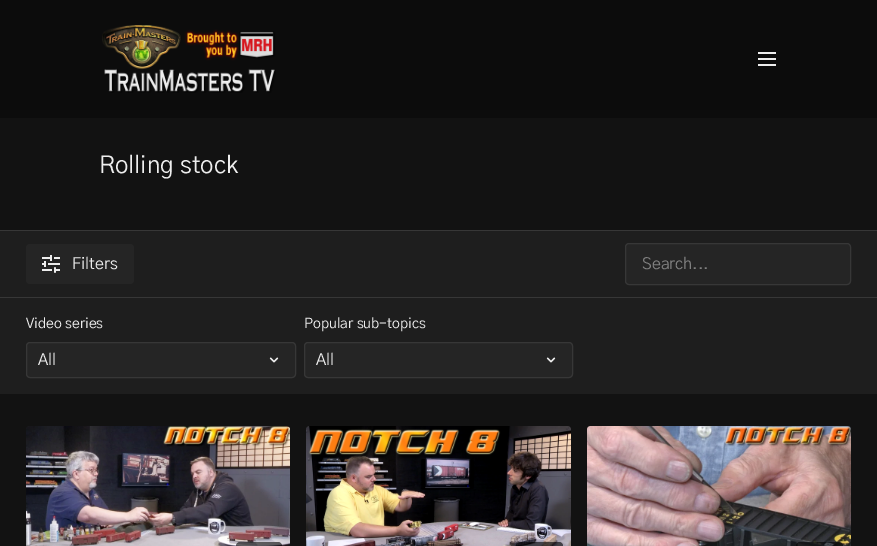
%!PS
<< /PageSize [877 546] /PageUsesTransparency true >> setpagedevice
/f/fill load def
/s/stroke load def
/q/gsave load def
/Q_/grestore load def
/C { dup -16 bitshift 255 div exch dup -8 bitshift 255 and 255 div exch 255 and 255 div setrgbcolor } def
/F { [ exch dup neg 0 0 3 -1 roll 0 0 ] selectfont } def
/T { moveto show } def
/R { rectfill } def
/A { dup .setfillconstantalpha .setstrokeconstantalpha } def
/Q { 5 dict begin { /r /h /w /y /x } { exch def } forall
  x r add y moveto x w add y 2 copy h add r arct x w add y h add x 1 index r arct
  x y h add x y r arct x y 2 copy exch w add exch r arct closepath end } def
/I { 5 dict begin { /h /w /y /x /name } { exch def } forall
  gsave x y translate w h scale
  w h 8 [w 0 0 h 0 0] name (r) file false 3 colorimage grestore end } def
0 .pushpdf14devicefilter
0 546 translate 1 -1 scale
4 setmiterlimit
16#121212 C
0 0 877 546 R
16#0C0C0C C
0 0 877 118 R
(1.rgb) 102 25 174 68 I
(2.rgb) 758 52 18 14 I
16#373737 C
0 230 877 1 R
/GothicA1-Regular 24 F
16#EEEEEE C
(Rolling stock) 99 173 T
16#1E1E1E C
0 231 877 163 R
16#373737 C
0 297 877 1 R
16#252525 C
26 244 108 40 4 Q f
(3.rgb) 42 255 18 18 I
/GothicA1-Regular 16 F
16#EEEEEE C
(Filters) 72 269 T
16#252525 C
625.5 243.5 225 41 3.5 Q q f Q_
16#373737 C
s
16#818181 C
(Search...) 642 269 T
/GothicA1-Regular 14 F
16#EEEEEE C
(Video series) 26 328 T
16#252525 C
26 342 270 36 4 Q f
(4.rgb) 269 357 10 6 I
16#373737 C
26.5 342.5 269 35 3.5 Q s
/GothicA1-Regular 16 F
16#EEEEEE C
(All) 38 365 T
/GothicA1-Regular 14 F
(Popular sub-topics) 304 328 T
16#252525 C
304 342 269 36 4 Q f
(4.rgb) 546 357 10 6 I
16#373737 C
304.5 342.5 268 35 3.5 Q s
/GothicA1-Regular 16 F
16#EEEEEE C
(All) 316 365 T
(5.rgb) 26 426 264 120 I
0.6 A
16#000000 C
236 542 46 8 4 Q f
1 A
(6.rgb) 306 426 265 120 I
0.6 A
516 542 47 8 4 Q f
1 A
(7.rgb) 587 426 264 120 I
0.6 A
796 542 47 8 4 Q f
.poppdf14devicefilter showpage
